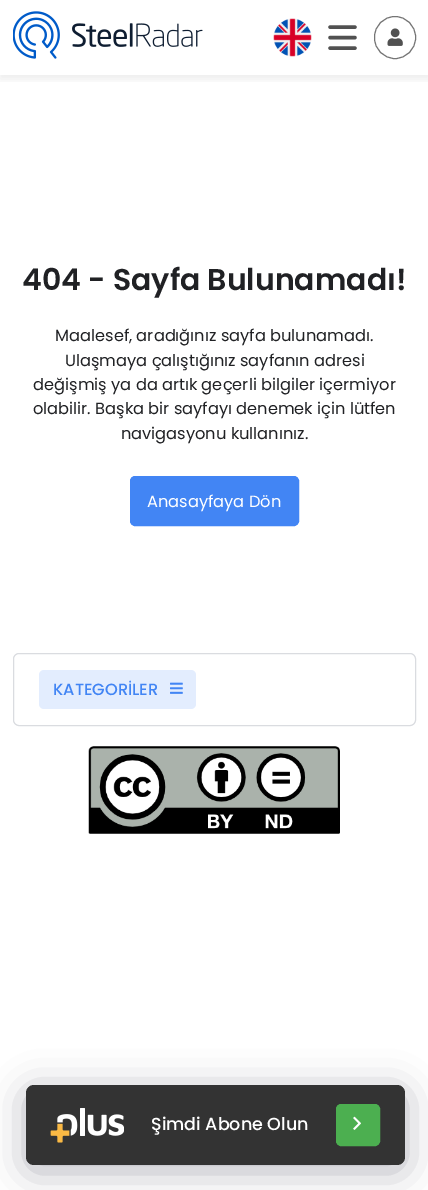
%!PS
<< /PageSize [428 1190] /PageUsesTransparency true >> setpagedevice
/m/moveto load def
/l/rlineto load def
/f/fill load def
/s/stroke load def
/q/gsave load def
/Q_/grestore load def
/w/setlinewidth load def
/C { dup -16 bitshift 255 div exch dup -8 bitshift 255 and 255 div exch 255 and 255 div setrgbcolor } def
/F { [ exch dup neg 0 0 3 -1 roll 0 0 ] selectfont } def
/T { moveto show } def
/R { rectfill } def
/A { dup .setfillconstantalpha .setstrokeconstantalpha } def
/Q { 5 dict begin { /r /h /w /y /x } { exch def } forall
  x r add y moveto x w add y 2 copy h add r arct x w add y h add x 1 index r arct
  x y h add x y r arct x y 2 copy exch w add exch r arct closepath end } def
/S { 12 dict begin { /a /b /q /h /w /y /x } { exch def } forall gsave /was 0 def
  9 -2 -9 { dup b mul 4 div /e exch def 1 sub .425 mul 2.718 exch exp 1 add a .99 .min exch div /now exch def
    1 1 now sub 1 was sub div sub A /was now def
    w h .min e 2 mul add 0 gt { x e sub y e sub w e 2 mul add h e 2 mul add
      q e add b .6 mul add w h .min 2 div e add .min 0 .max Q fill } if } for grestore end } def
/I { 5 dict begin { /h /w /y /x /name } { exch def } forall
  gsave x y translate w h scale
  w h 8 [w 0 0 h 0 0] name (r) file false 3 colorimage grestore end } def
0 .pushpdf14devicefilter
0 1190 translate 1 -1 scale
4 setmiterlimit
16#FFFFFF C
0 0 428 1190 R
q
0 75 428 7 rectclip
16#000000 C
0 4 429 75 0 5 .07 S
Q_
(1.rgb) 13 11 190 48 I
(2.rgb) 273 18 39 39 I
16#515151 C
3.4 w
1 setlinecap
330 27 m 25 0 l 330 37.5 m 25 0 l 330 48 m 25 0 l s
16#757575 C
1 w
0 setlinecap
374.5 16.5 41 42 20.5 Q s
(3.rgb) 387 28 16 18 I
/Poppins-SemiBold 30 F
16#202124 C
(404 - Sayfa Bulunamadı!) 22 290 T
/Poppins-Regular 16.25 F
(Maalesef, aradığınız sayfa bulunamadı.) 55 341 T
(Ulaşmaya çalıştığınız sayfanın adresi) 65 366 T
(değişmiş ya da artık geçerli bilgiler içermiyor) 33 390 T
(olabilir. Başka bir sayfayı denemek için lütfen) 33 414 T
(navigasyonu kullanınız.) 121 439 T
16#4285F4 C
130.5 476.5 168 49 4.5 Q q f Q_
s
16#FFFFFF C
(Anasayfaya Dön) 147 507 T
16#DADCE0 C
13.5 653.5 402 72 5.5 Q s
16#E3EDFE C
39 670 157 39 5 Q f
/Poppins-Medium 16.25 F
16#4285F4 C
(KATEGORİLER) 53 695 T
(4.rgb) 170 682 13 12 I
(5.rgb) 88 746 252 88 I
16#050421 C
26 1091 379 80 8 19 .3 S
16#333333 C
26 1085 379 80 8 Q f
(6.rgb) 50 1108 74 35 I
/Poppins-Medium 17.5 F
16#FFFFFF C
(Şimdi Abone Olun) 151 1130 T
16#4CAF50 C
336.5 1104.5 43 41 4.5 Q q f Q_
s
(7.rgb) 353 1116 8 14 I
.poppdf14devicefilter showpage
